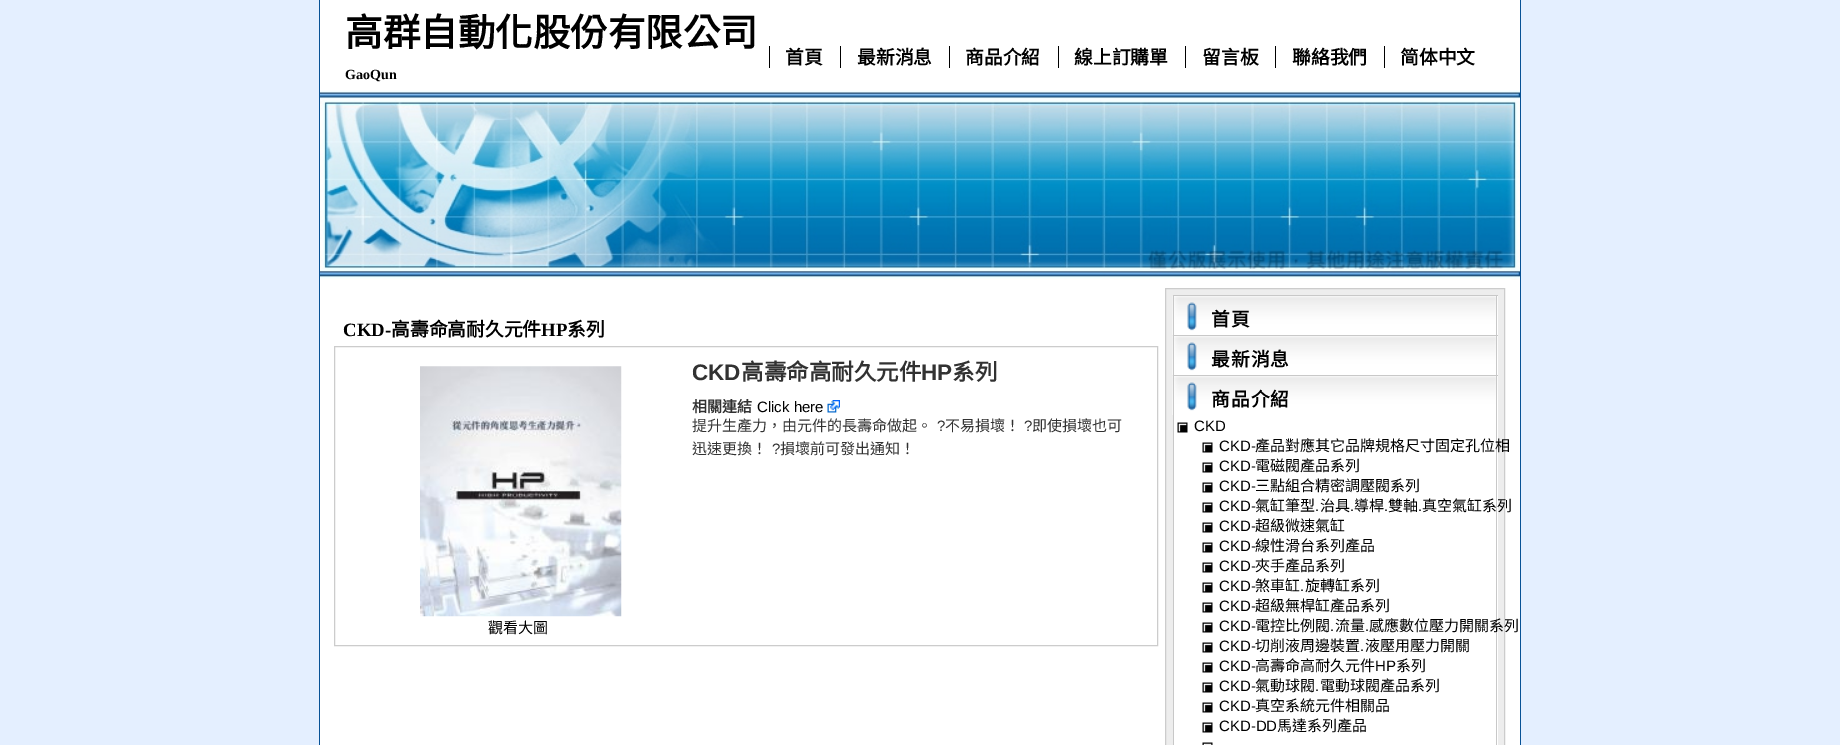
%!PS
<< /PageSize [1840 745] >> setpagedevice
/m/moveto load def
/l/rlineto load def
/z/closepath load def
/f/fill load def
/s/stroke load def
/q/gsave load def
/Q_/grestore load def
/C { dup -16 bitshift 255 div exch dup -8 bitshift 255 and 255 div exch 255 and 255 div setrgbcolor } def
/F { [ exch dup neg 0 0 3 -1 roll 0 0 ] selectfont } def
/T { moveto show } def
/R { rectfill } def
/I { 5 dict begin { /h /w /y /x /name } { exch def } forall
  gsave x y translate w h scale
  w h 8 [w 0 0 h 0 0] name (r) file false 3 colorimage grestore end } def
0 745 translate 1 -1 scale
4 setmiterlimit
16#E4EFFF C
0 0 1840 745 R
16#FFFFFF C
320 0 1200 745 R
16#075296 C
1520 0 1 745 R
319 0 1 745 R
(1.rgb) 320 90 1200 190 I
/NotoSansCJKTC-Bold 37.5 F
16#000000 C
(高群自動化股份有限公司) 345 46 T
/LiberationSerif-Bold 14 F
(GaoQun) 345 79 T
/NotoSansCJKTC-Bold 18.75 F
(首頁) 785 64 T
769 46 1 22 R
(最新消息) 857 64 T
840 46 1 22 R
(商品介紹) 965 64 T
949 46 1 22 R
(線上訂購單) 1074 64 T
1058 46 1 22 R
(留言板) 1202 64 T
1185 46 1 22 R
(聯絡我們) 1292 64 T
1275 46 1 22 R
(简体中文) 1400 64 T
1384 46 1 22 R
/LiberationSerif-Bold 18.75 F
(CKD-) 343 336 T
/NotoSansCJKTC-Bold 18.75 F
(高壽命高耐久元件) 391 336 T
/LiberationSerif-Bold 18.75 F
(HP) 541 336 T
/NotoSansCJKTC-Bold 18.75 F
(系列) 567 336 T
16#CCCCCC C
334.5 346.5 823 299 rectstroke
/LiberationSans-Bold 22.5 F
16#323232 C
(CKD) 692 380 T
/NotoSansCJKTC-Bold 22.5 F
(高壽命高耐久元件) 741 380 T
/LiberationSans-Bold 22.5 F
(HP) 921 380 T
/NotoSansCJKTC-Bold 22.5 F
(系列) 952 380 T
/NotoSansCJKTC-Bold 15 F
(相關連結) 692 412 T
/LiberationSans-Regular 15 F
16#000000 C
(Click here) 757 412 T
(2.rgb) 827 400 13 13 I
/NotoSansCJKTC-Regular 15 F
16#323232 C
(提升生產力，由元件的長壽命做起。) 692 431 T
/LiberationSans-Regular 15 F
(?) 937 431 T
/NotoSansCJKTC-Regular 15 F
(不易損壞！) 945 431 T
/LiberationSans-Regular 15 F
(?) 1024 431 T
/NotoSansCJKTC-Regular 15 F
(即使損壞也可) 1032 431 T
(迅速更換！) 692 454 T
/LiberationSans-Regular 15 F
(?) 772 454 T
/NotoSansCJKTC-Regular 15 F
(損壞前可發出通知！) 780 454 T
(3.rgb) 420 366 202 251 I
16#000000 C
(觀看大圖) 488 633 T
16#EDEDED C
1165.5 288.5 m 339 0 l 0 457 l -339 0 l z q f Q_
16#CCCCCC C
s
16#FFFFFF C
1174 296 324 39 R
(4.rgb) 1172 296 326 39 I
16#C8C8C8 C
1173 295 325 1 R
1496 295 1 40 R
1173 295 1 40 R
/NotoSansCJKTC-Bold 18.75 F
16#000000 C
1211 326 m 1 0 (首頁) ashow
16#FFFFFF C
1174 336 324 39 R
(5.rgb) 1172 336 326 39 I
16#C8C8C8 C
1173 335 325 1 R
1496 335 1 40 R
1173 335 1 40 R
16#000000 C
1211 366 m 1 0 (最新消息) ashow
16#FFFFFF C
1174 376 324 369 R
(6.rgb) 1172 376 326 39 I
16#C8C8C8 C
1173 375 325 1 R
1496 375 1 370 R
1173 375 1 370 R
16#000000 C
1211 406 m 1 0 (商品介紹) ashow
(7.rgb) 1177 422 11 11 I
/LiberationSans-Regular 15 F
(CKD) 1194 431 T
(7.rgb) 1202 442 11 11 I
(CKD-) 1219 451 T
/NotoSansCJKTC-Regular 15 F
(產品對應其它品牌規格尺寸固定孔位相) 1255 451 T
(7.rgb) 1202 462 11 11 I
/LiberationSans-Regular 15 F
(CKD-) 1219 471 T
/NotoSansCJKTC-Regular 15 F
(電磁閥產品系列) 1255 471 T
(7.rgb) 1202 482 11 11 I
/LiberationSans-Regular 15 F
(CKD-) 1219 491 T
/NotoSansCJKTC-Regular 15 F
(三點組合精密調壓閥系列) 1255 491 T
(7.rgb) 1202 502 11 11 I
/LiberationSans-Regular 15 F
(CKD-) 1219 511 T
/NotoSansCJKTC-Regular 15 F
(氣缸筆型) 1255 511 T
/LiberationSans-Regular 15 F
(.) 1315 511 T
/NotoSansCJKTC-Regular 15 F
(治具) 1320 511 T
/LiberationSans-Regular 15 F
(.) 1350 511 T
/NotoSansCJKTC-Regular 15 F
(導桿) 1354 511 T
/LiberationSans-Regular 15 F
(.) 1384 511 T
/NotoSansCJKTC-Regular 15 F
(雙軸) 1388 511 T
/LiberationSans-Regular 15 F
(.) 1418 511 T
/NotoSansCJKTC-Regular 15 F
(真空氣缸系列) 1422 511 T
(7.rgb) 1202 522 11 11 I
/LiberationSans-Regular 15 F
(CKD-) 1219 531 T
/NotoSansCJKTC-Regular 15 F
(超級微速氣缸) 1255 531 T
(7.rgb) 1202 542 11 11 I
/LiberationSans-Regular 15 F
(CKD-) 1219 551 T
/NotoSansCJKTC-Regular 15 F
(線性滑台系列產品) 1255 551 T
(7.rgb) 1202 562 11 11 I
/LiberationSans-Regular 15 F
(CKD-) 1219 571 T
/NotoSansCJKTC-Regular 15 F
(夾手產品系列) 1255 571 T
(8.rgb) 1202 582 11 11 I
/LiberationSans-Regular 15 F
(CKD-) 1219 591 T
/NotoSansCJKTC-Regular 15 F
(煞車缸) 1255 591 T
/LiberationSans-Regular 15 F
(.) 1300 591 T
/NotoSansCJKTC-Regular 15 F
(旋轉缸系列) 1305 591 T
(7.rgb) 1202 602 11 11 I
/LiberationSans-Regular 15 F
(CKD-) 1219 611 T
/NotoSansCJKTC-Regular 15 F
(超級無桿缸產品系列) 1255 611 T
(7.rgb) 1202 622 11 11 I
/LiberationSans-Regular 15 F
(CKD-) 1219 631 T
/NotoSansCJKTC-Regular 15 F
(電控比例閥) 1255 631 T
/LiberationSans-Regular 15 F
(.) 1330 631 T
/NotoSansCJKTC-Regular 15 F
(流量) 1335 631 T
/LiberationSans-Regular 15 F
(.) 1365 631 T
/NotoSansCJKTC-Regular 15 F
(感應數位壓力開關系列) 1369 631 T
(7.rgb) 1202 642 11 11 I
/LiberationSans-Regular 15 F
(CKD-) 1219 651 T
/NotoSansCJKTC-Regular 15 F
(切削液周邊裝置) 1255 651 T
/LiberationSans-Regular 15 F
(.) 1360 651 T
/NotoSansCJKTC-Regular 15 F
(液壓用壓力開關) 1365 651 T
(7.rgb) 1202 662 11 11 I
/LiberationSans-Regular 15 F
(CKD-) 1219 671 T
/NotoSansCJKTC-Regular 15 F
(高壽命高耐久元件) 1255 671 T
/LiberationSans-Regular 15 F
(HP) 1375 671 T
/NotoSansCJKTC-Regular 15 F
(系列) 1396 671 T
(7.rgb) 1202 682 11 11 I
/LiberationSans-Regular 15 F
(CKD-) 1219 691 T
/NotoSansCJKTC-Regular 15 F
(氣動球閥) 1255 691 T
/LiberationSans-Regular 15 F
(.) 1315 691 T
/NotoSansCJKTC-Regular 15 F
(電動球閥產品系列) 1320 691 T
(7.rgb) 1202 702 11 11 I
/LiberationSans-Regular 15 F
(CKD-) 1219 711 T
/NotoSansCJKTC-Regular 15 F
(真空系統元件相關品) 1255 711 T
(7.rgb) 1202 722 11 11 I
/LiberationSans-Regular 15 F
(CKD-DD) 1219 731 T
/NotoSansCJKTC-Regular 15 F
(馬達系列產品) 1277 731 T
(9.rgb) 1202 742 11 3 I
showpage
